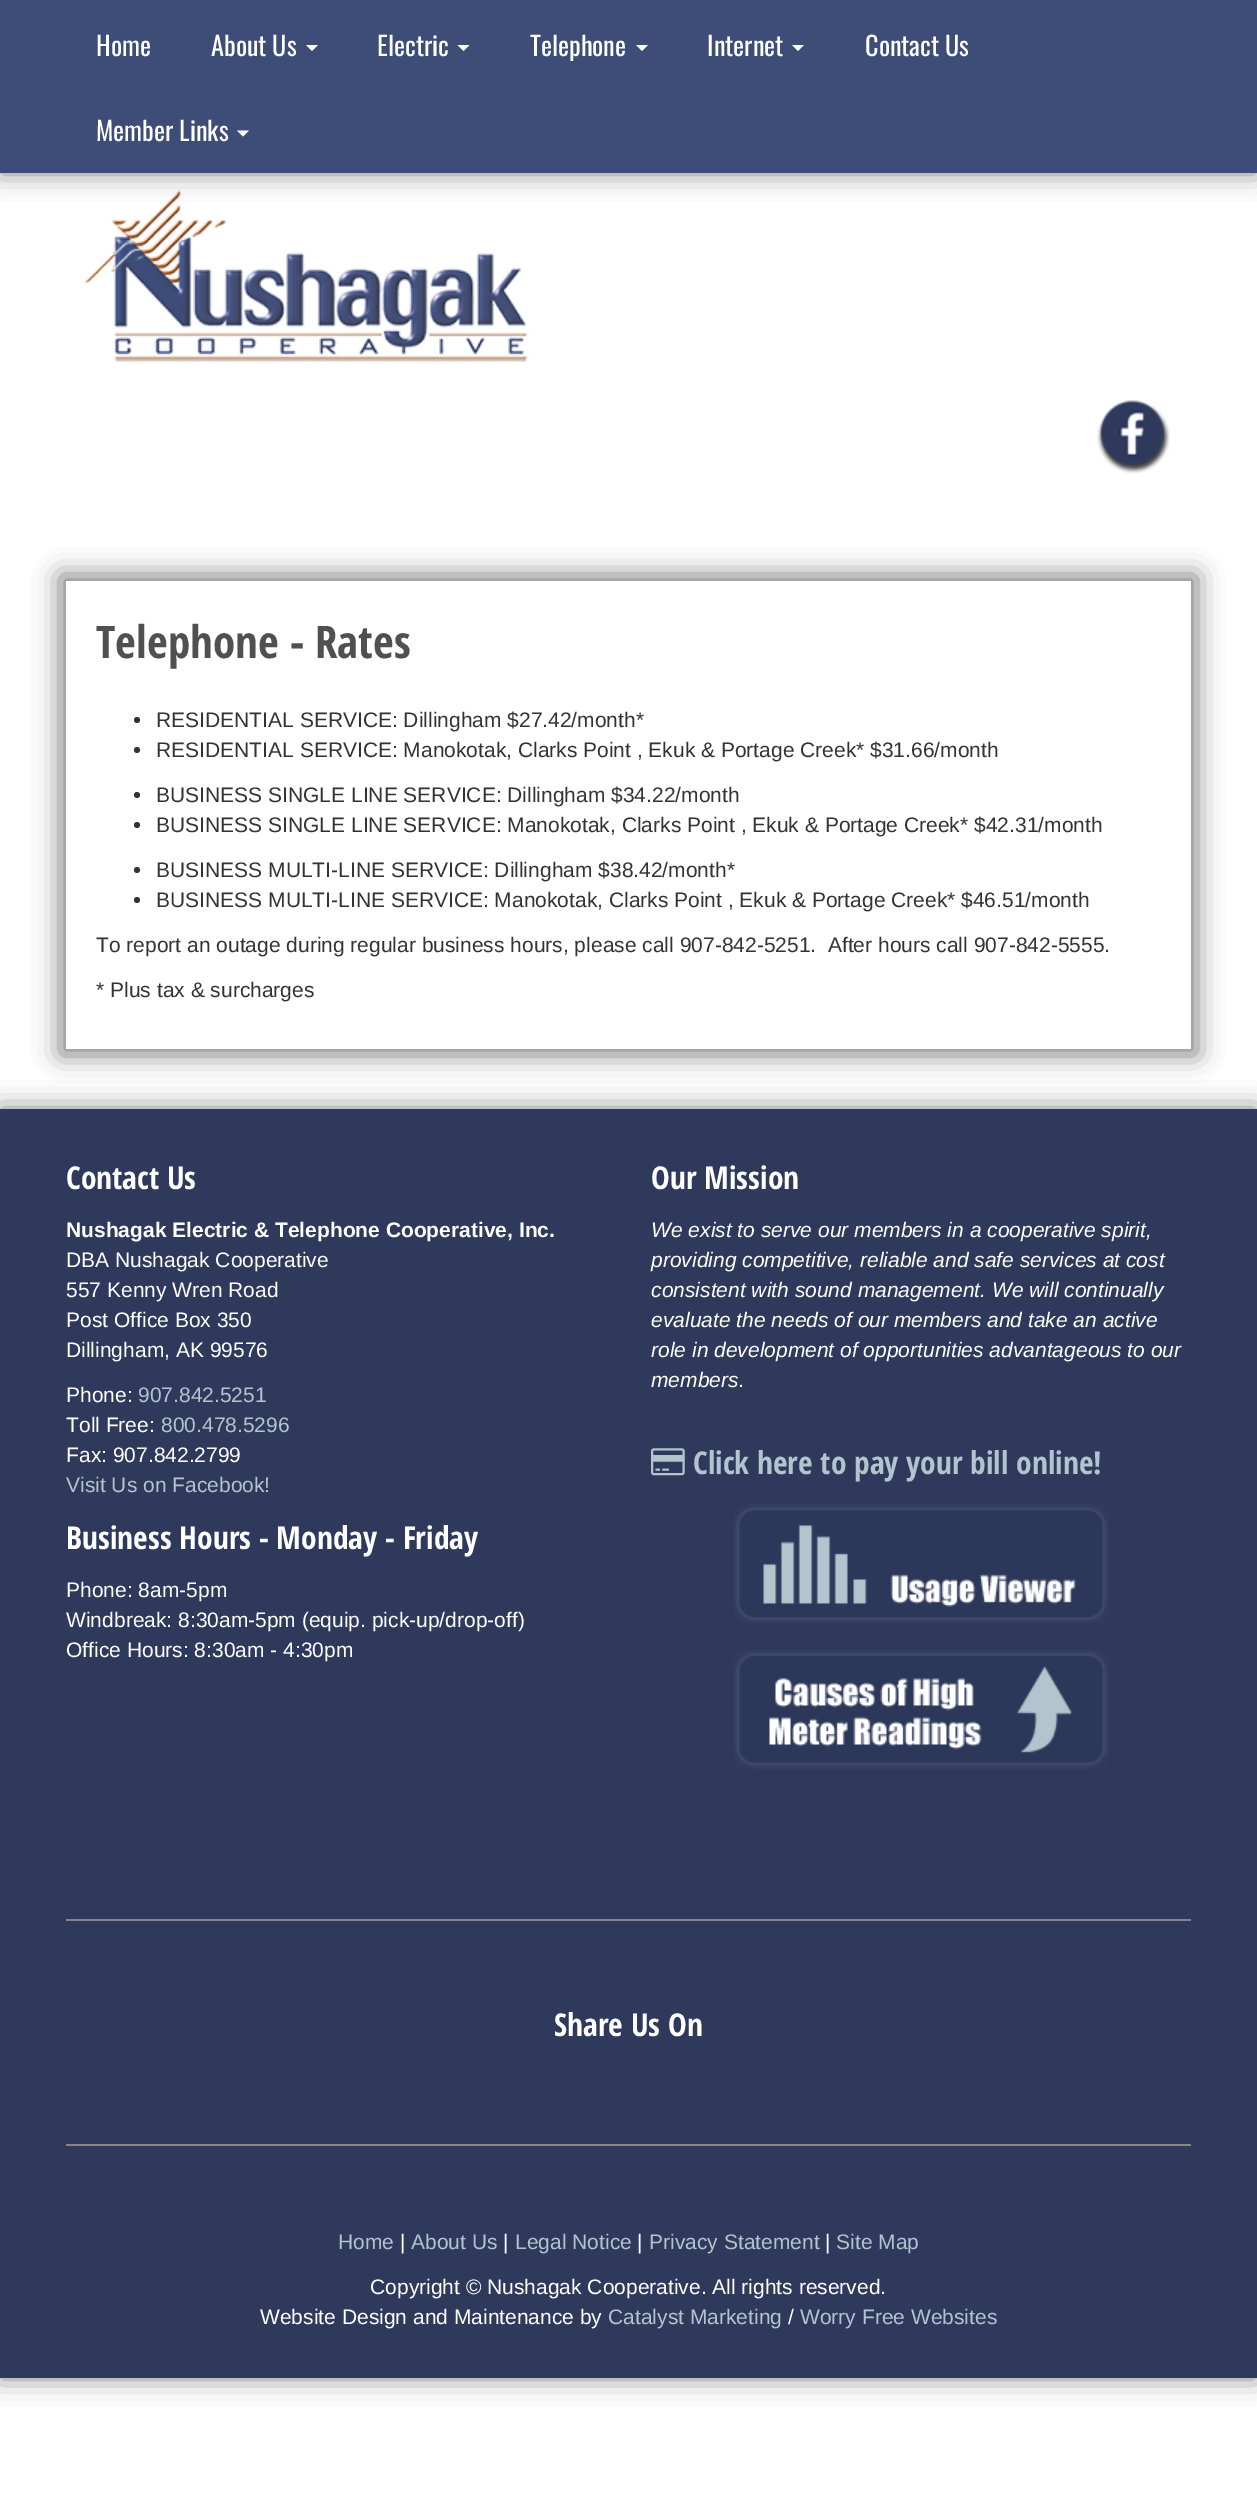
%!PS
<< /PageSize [1257 2505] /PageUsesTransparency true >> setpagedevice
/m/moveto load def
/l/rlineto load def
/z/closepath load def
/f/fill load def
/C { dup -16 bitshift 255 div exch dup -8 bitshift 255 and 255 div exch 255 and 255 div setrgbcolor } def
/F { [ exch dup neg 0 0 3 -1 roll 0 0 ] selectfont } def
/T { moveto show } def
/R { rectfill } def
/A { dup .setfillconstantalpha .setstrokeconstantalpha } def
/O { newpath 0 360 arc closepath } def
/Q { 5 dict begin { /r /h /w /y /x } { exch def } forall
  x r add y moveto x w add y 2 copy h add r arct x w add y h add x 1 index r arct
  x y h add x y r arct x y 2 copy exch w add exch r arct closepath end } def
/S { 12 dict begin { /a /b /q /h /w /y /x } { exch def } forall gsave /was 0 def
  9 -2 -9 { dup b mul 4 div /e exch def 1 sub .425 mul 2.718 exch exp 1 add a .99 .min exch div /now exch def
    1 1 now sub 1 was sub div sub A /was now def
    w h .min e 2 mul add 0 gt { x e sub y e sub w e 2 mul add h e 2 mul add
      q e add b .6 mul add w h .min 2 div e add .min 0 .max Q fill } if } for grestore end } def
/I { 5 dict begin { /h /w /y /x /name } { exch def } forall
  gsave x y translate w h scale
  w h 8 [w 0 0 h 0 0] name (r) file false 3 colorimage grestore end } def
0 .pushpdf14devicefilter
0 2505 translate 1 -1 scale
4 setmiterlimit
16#FFFFFF C
0 0 1257 2505 R
(1.rgb) 82 189 447 173 I
16#000000 C
0 0 1257 173 0 13 .5 S
16#3E4C78 C
0 0 1257 173 R
/Oswald-Regular 26.25 F
16#FFFFFF C
(Home) 96 56 T
(About Us) 211 56 T
306 45 m 12 0 l -6 6 l z f
(Electric) 377 56 T
457.5 45 m 12 0 l -6 6 l z f
(Telephone) 530 56 T
636 45 m 12 0 l -6 6 l z f
(Internet) 707 56 T
792 45 m 12 0 l -6 6 l z f
(Contact Us) 865 56 T
(Member Links) 96 141 T
237 130.5 m 12 0 l -6 6 l z f
(2.rgb) 1097 400 73 74 I
16#000000 C
60 575 1137 480 0 13 .5 S
16#FFFFFF C
66 581 1125 468 R
/OpenSansCondensed-Bold 45 F
16#514F52 C
(Telephone - Rates) 96 658 T
16#333333 C
137 720 3 O f
/LiberationSans-Regular 21 F
(RESIDENTIAL SERVICE: Dillingham $27.42/month*) 156 727 T
137 750 3 O f
(RESIDENTIAL SERVICE: Manokotak, Clarks Point , Ekuk & Portage Creek* $31.66/month) 156 757 T
137 795 3 O f
(BUSINESS SINGLE LINE SERVICE: Dillingham $34.22/month) 156 802 T
137 825 3 O f
(BUSINESS SINGLE LINE SERVICE: Manokotak, Clarks Point , Ekuk & Portage Creek* $42.31/month) 156 832 T
137 870 3 O f
(BUSINESS MULTI-LINE SERVICE: Dillingham $38.42/month*) 156 877 T
137 900 3 O f
(BUSINESS MULTI-LINE SERVICE: Manokotak, Clarks Point , Ekuk & Portage Creek* $46.51/month) 156 907 T
(To report an outage during regular business hours, please call 907-842-5251.  After hours call 907-842-5555.) 96 952 T
(* Plus tax & surcharges) 96 997 T
16#000000 C
0 1109 1257 1269 0 13 .5 S
16#2E395C C
0 1109 1257 1269 R
/OpenSansCondensed-Bold 31.5 F
16#FFFFFF C
(Contact Us) 66 1189 T
/LiberationSans-Bold 21 F
(Nushagak Electric & Telephone Cooperative, Inc.) 66 1237 T
/LiberationSans-Regular 21 F
(DBA Nushagak Cooperative) 66 1267 T
(557 Kenny Wren Road) 66 1297 T
(Post Office Box 350) 66 1327 T
(Dillingham, AK 99576) 66 1357 T
(Phone:) 66 1402 T
16#B3C4CE C
(907.842.5251) 138 1402 T
16#FFFFFF C
(Toll Free:) 66 1432 T
16#B3C4CE C
(800.478.5296) 161 1432 T
16#FFFFFF C
(Fax: 907.842.2799) 66 1462 T
16#B3C4CE C
(Visit Us on Facebook!) 66 1492 T
/OpenSansCondensed-Bold 31.5 F
16#FFFFFF C
(Business Hours - Monday - Friday) 66 1549 T
/LiberationSans-Regular 21 F
(Phone: 8am-5pm) 66 1597 T
(Windbreak: 8:30am-5pm \(equip. pick-up/drop-off\)) 66 1627 T
(Office Hours: 8:30am - 4:30pm) 66 1657 T
/OpenSansCondensed-Bold 31.5 F
(Our Mission) 651 1189 T
/LiberationSans-Italic 21 F
(We exist to serve our members in a cooperative spirit,) 651 1237 T
(providing competitive, reliable and safe services at cost) 651 1267 T
(consistent with sound management. We will continually) 651 1297 T
(evaluate the needs of our members and take an active) 651 1327 T
(role in development of opportunities advantageous to our) 651 1357 T
(members.) 651 1387 T
(3.rgb) 651 1448 34 28 I
/OpenSansCondensed-Bold 31.5 F
16#B3C4CE C
(Click here to pay your bill online!) 693 1474 T
(4.rgb) 734 1504 375 119 I
(5.rgb) 734 1650 375 119 I
16#888487 C
66 1919 1125 2 R
16#FFFFFF C
(Share Us On) 554 2036 T
16#888487 C
66 2144 1125 2 R
/LiberationSans-Regular 21 F
16#B3C4CE C
(Home) 338 2249 T
16#FFFFFF C
(|) 400 2249 T
16#B3C4CE C
(About Us) 411 2249 T
16#FFFFFF C
(|) 503 2249 T
16#B3C4CE C
(Legal Notice) 515 2249 T
16#FFFFFF C
(|) 637 2249 T
16#B3C4CE C
(Privacy Statement) 649 2249 T
16#FFFFFF C
(|) 825 2249 T
16#B3C4CE C
(Site Map) 836 2249 T
16#FFFFFF C
(Copyright © Nushagak Cooperative. All rights reserved.) 370 2294 T
(Website Design and Maintenance by) 260 2324 T
16#B3C4CE C
(Catalyst Marketing) 608 2324 T
16#FFFFFF C
(/) 788 2324 T
16#B3C4CE C
(Worry Free Websites) 800 2324 T
.poppdf14devicefilter showpage
